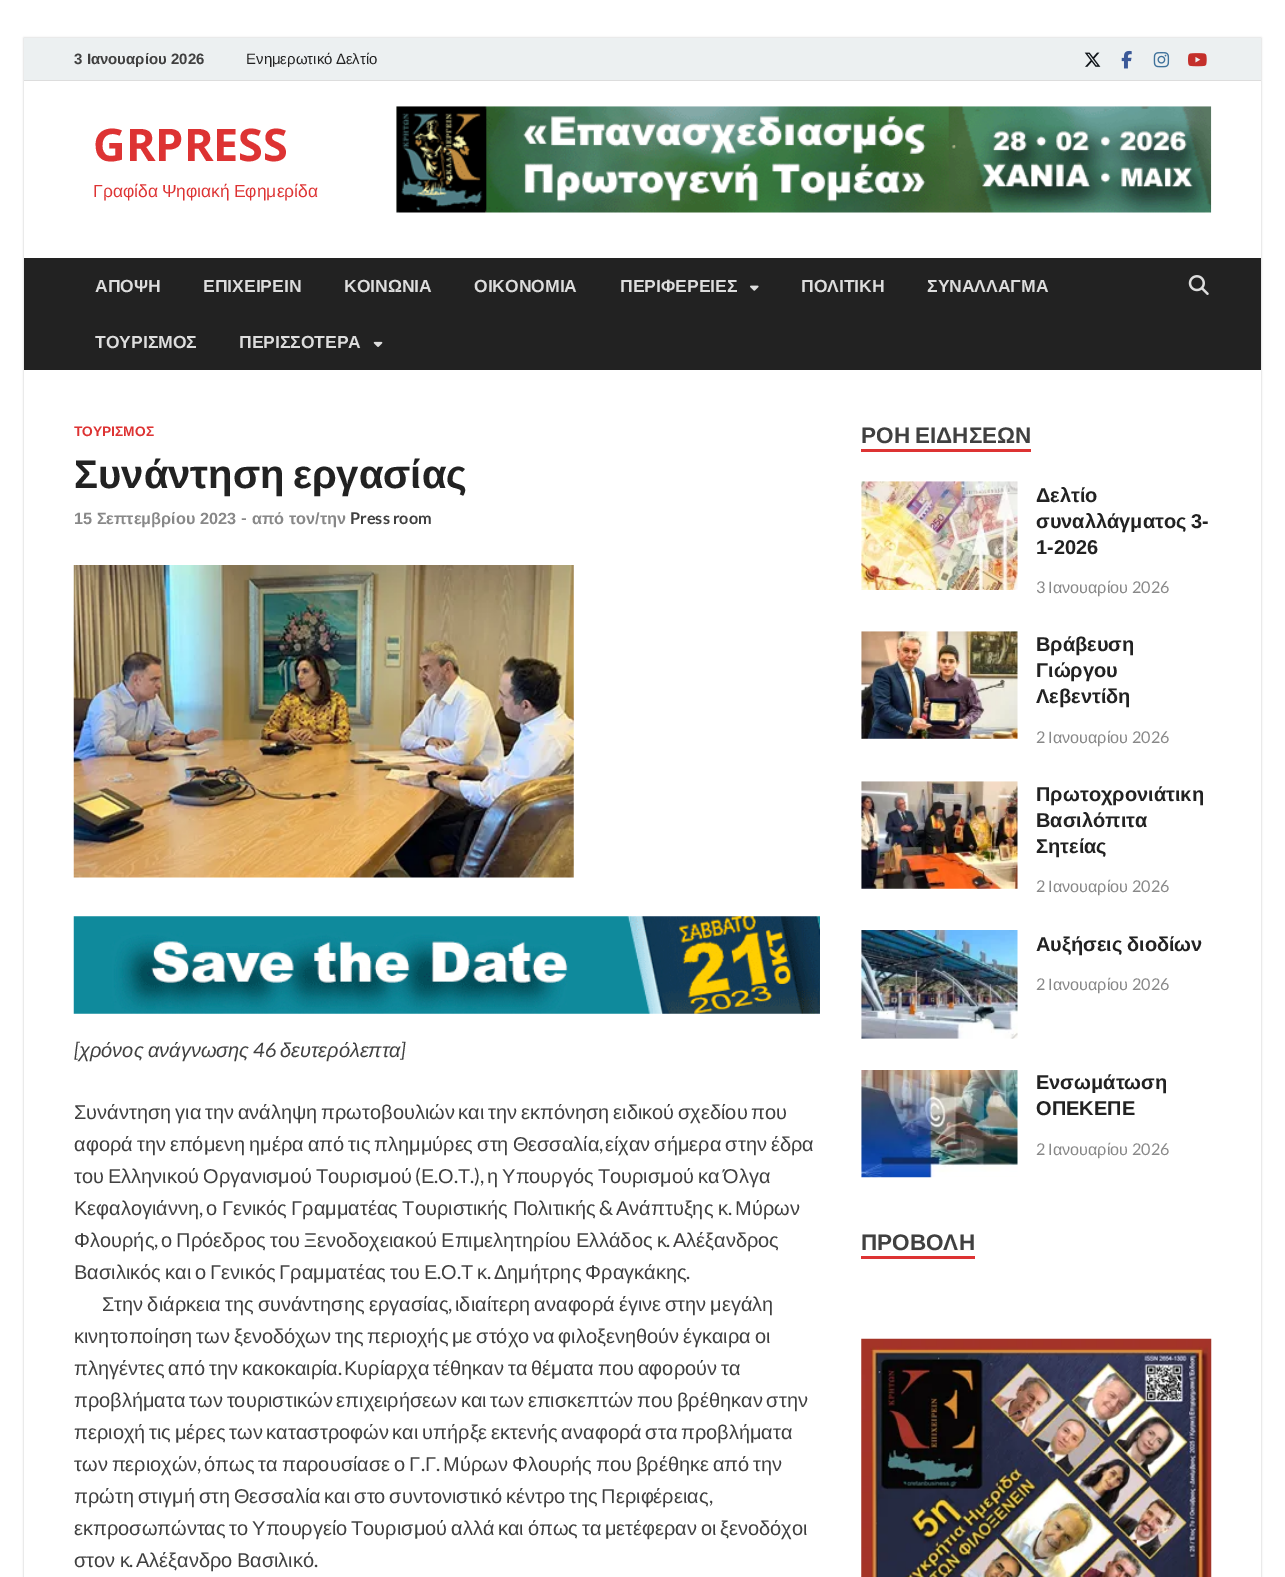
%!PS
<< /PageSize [1285 1577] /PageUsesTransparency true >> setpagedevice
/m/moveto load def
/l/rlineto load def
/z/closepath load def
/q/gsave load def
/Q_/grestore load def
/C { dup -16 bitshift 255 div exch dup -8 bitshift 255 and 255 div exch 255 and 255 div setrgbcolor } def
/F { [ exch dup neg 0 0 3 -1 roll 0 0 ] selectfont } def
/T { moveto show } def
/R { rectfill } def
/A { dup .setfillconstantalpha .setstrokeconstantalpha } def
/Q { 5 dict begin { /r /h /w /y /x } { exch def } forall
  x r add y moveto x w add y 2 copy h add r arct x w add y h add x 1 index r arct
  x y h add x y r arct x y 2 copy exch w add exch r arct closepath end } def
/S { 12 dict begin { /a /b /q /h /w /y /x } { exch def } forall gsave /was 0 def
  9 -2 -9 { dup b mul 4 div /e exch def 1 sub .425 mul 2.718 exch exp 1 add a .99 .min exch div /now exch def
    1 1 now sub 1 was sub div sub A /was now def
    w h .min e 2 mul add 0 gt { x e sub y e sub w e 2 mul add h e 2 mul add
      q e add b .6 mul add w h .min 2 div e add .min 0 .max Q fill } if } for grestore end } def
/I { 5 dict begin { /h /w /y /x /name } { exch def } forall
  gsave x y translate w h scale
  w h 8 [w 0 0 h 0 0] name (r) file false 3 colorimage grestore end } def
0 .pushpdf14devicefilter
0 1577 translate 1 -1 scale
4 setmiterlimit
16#FFFFFF C
0 0 1285 1577 R
q
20 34 m 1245 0 l 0 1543 l -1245 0 l z 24 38 m 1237 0 l 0 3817 l -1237 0 l z eoclip newpath
16#BBBBBB C
24 38 1237 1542 0 1 1 S
Q_
16#ECF0F1 C
24 38 1237 42 R
16#DDDDDD C
24 80 1237 1 R
/LiberationSans-Bold 15 F
16#404040 C
(3 Ιανουαρίου 2026) 74 64 T
/LiberationSans-Regular 15 F
16#222222 C
246 64 m -1 0 32 (Ενημερωτικό Δελτίο) widthshow
(1.rgb) 1084 52 17 15 I
(2.rgb) 1121 50 11 19 I
(3.rgb) 1153 52 17 16 I
(4.rgb) 1188 53 19 14 I
/OpenSans-Bold 45 F
16#DD3333 C
(GRPRESS) 93 161 T
/LiberationSans-Regular 17.5 F
93 197 m -1 0 32 (Γραφίδα Ψηφιακή Εφημερίδα) widthshow
(5.rgb) 396 106 816 107 I
16#222222 C
24 258 1237 112 R
/LiberationSans-Bold 17.5 F
16#DDDDDD C
(ΑΠΟΨΗ) 95 292 T
(ΕΠΙΧΕΙΡΕΙΝ) 203 292 T
(ΚΟΙΝΩΝΙΑ) 344 292 T
(ΟΙΚΟΝΟΜΙΑ) 474 292 T
(ΠΕΡΙΦΕΡΕΙΕΣ) 620 292 T
(6.rgb) 750 285 9 6 I
(ΠΟΛΙΤΙΚΗ) 801 292 T
(ΣΥΝΑΛΛΑΓΜΑ) 927 292 T
(ΤΟΥΡΙΣΜΟΣ) 95 348 T
(ΠΕΡΙΣΣΟΤΕΡΑ) 239 348 T
(7.rgb) 373 341 10 6 I
(8.rgb) 1188 275 21 20 I
/LiberationSans-Bold 13.75 F
16#DD3333 C
(ΤΟΥΡΙΣΜΟΣ) 74 436 T
/LiberationSans-Bold 40 F
16#222222 C
74 488 m -3 0 32 (Συνάντηση εργασίας) widthshow
/LiberationSans-Bold 16.25 F
16#888888 C
(15 Σεπτεμβρίου 2023) 74 524 T
/Lato-Bold 16.25 F
(-) 241 524 T
/LiberationSans-Bold 16.25 F
(από τον/την) 252 524 T
/Lato-Bold 16.25 F
16#404040 C
(Press room) 350 524 T
(9.rgb) 73 565 501 313 I
(10.rgb) 73 916 747 98 I
/Lato-Italic 20 F
([) 74 1057 T
/LiberationSans-Italic 20 F
79 1057 m -1 0 32 (χρόνος ανάγνωσης) widthshow
/Lato-Italic 20 F
(46) 253 1057 T
/LiberationSans-Italic 20 F
(δευτερόλεπτα) 280 1057 T
/Lato-Italic 20 F
(]) 400 1057 T
/LiberationSans-Regular 20 F
74 1119 m -1.75 0 32 (Συνάντηση για την ανάληψη πρωτοβουλιών και την εκπόνηση ειδικού σχεδίου που) widthshow
74 1151 m -1.5 0 32 (αφορά την επόμενη ημέρα από τις πλημμύρες στη Θεσσαλία) widthshow
/Lato-Regular 20 F
(,) 599 1151 T
/LiberationSans-Regular 20 F
605 1151 m -1.5 0 32 (είχαν σήμερα στην έδρα) widthshow
74 1183 m -1.5 0 32 (του Ελληνικού Οργανισμού Τουρισμού) widthshow
/Lato-Regular 20 F
(\() 415 1183 T
/LiberationSans-Regular 20 F
(Ε) 421 1183 T
/Lato-Regular 20 F
(.) 434 1183 T
/LiberationSans-Regular 20 F
(Ο) 438 1183 T
/Lato-Regular 20 F
(.) 454 1183 T
/LiberationSans-Regular 20 F
(Τ) 458 1183 T
/Lato-Regular 20 F
(.\),) 470 1183 T
/LiberationSans-Regular 20 F
487 1183 m -1.5 0 32 (η Υπουργός Τουρισμού κα Όλγα) widthshow
(Κεφαλογιάννη) 74 1215 T
/Lato-Regular 20 F
(,) 199 1215 T
/LiberationSans-Regular 20 F
206 1215 m -1 0 32 (ο Γενικός Γραμματέας Τουριστικής Πολιτικής) widthshow
/Lato-Regular 20 F
(&) 599 1215 T
/LiberationSans-Regular 20 F
616 1215 m -1 0 32 (Ανάπτυξης κ) widthshow
/Lato-Regular 20 F
(.) 728 1215 T
/LiberationSans-Regular 20 F
(Μύρων) 735 1215 T
(Φλουρής) 74 1247 T
/Lato-Regular 20 F
(,) 154 1247 T
/LiberationSans-Regular 20 F
161 1247 m -1.25 0 32 (ο Πρόεδρος του Ξενοδοχειακού Επιμελητηρίου Ελλάδος κ) widthshow
/Lato-Regular 20 F
(.) 666 1247 T
/LiberationSans-Regular 20 F
(Αλέξανδρος) 673 1247 T
74 1279 m -1.5 0 32 (Βασιλικός και ο Γενικός Γραμματέας του Ε) widthshow
/Lato-Regular 20 F
(.) 437 1279 T
/LiberationSans-Regular 20 F
(Ο) 441 1279 T
/Lato-Regular 20 F
(.) 457 1279 T
/LiberationSans-Regular 20 F
461 1279 m -1.5 0 32 (Τ κ) widthshow
/Lato-Regular 20 F
(.) 487 1279 T
/LiberationSans-Regular 20 F
494 1279 m -1.5 0 32 (Δημήτρης Φραγκάκης) widthshow
/Lato-Regular 20 F
(.) 686 1279 T
/LiberationSans-Regular 20 F
102 1311 m -1.5 0 32 (Στην διάρκεια της συνάντησης εργασίας) widthshow
/Lato-Regular 20 F
(,) 448 1311 T
/LiberationSans-Regular 20 F
455 1311 m -1.5 0 32 (ιδιαίτερη αναφορά έγινε στην μεγάλη) widthshow
74 1343 m -1.75 0 32 (κινητοποίηση των ξενοδόχων της περιοχής με στόχο να φιλοξενηθούν έγκαιρα οι) widthshow
74 1375 m -1.5 0 32 (πληγέντες από την κακοκαιρία) widthshow
/Lato-Regular 20 F
(.) 338 1375 T
/LiberationSans-Regular 20 F
344 1375 m -1.5 0 32 (Κυρίαρχα τέθηκαν τα θέματα που αφορούν τα) widthshow
74 1407 m -1.75 0 32 (προβλήματα των τουριστικών επιχειρήσεων και των επισκεπτών που βρέθηκαν στην) widthshow
74 1439 m -1.75 0 32 (περιοχή τις μέρες των καταστροφών και υπήρξε εκτενής αναφορά στα προβλήματα) widthshow
74 1471 m -1.5 0 32 (των περιοχών) widthshow
/Lato-Regular 20 F
(,) 197 1471 T
/LiberationSans-Regular 20 F
204 1471 m -1.5 0 32 (όπως τα παρουσίασε ο Γ) widthshow
/Lato-Regular 20 F
(.) 421 1471 T
/LiberationSans-Regular 20 F
(Γ) 425 1471 T
/Lato-Regular 20 F
(.) 436 1471 T
/LiberationSans-Regular 20 F
443 1471 m -1.5 0 32 (Μύρων Φλουρής που βρέθηκε από την) widthshow
74 1503 m -1.75 0 32 (πρώτη στιγμή στη Θεσσαλία και στο συντονιστικό κέντρο της Περιφέρειας) widthshow
/Lato-Regular 20 F
(,) 709 1503 T
/LiberationSans-Regular 20 F
74 1535 m -1.75 0 32 (εκπροσωπώντας το Υπουργείο Τουρισμού αλλά και όπως τα μετέφεραν οι ξενοδόχοι) widthshow
74 1567 m -1.25 0 32 (στον κ) widthshow
/Lato-Regular 20 F
(.) 129 1567 T
/LiberationSans-Regular 20 F
136 1567 m -1.25 0 32 (Αλέξανδρο Βασιλικό) widthshow
/Lato-Regular 20 F
(.) 314 1567 T
16#DD3333 C
861 449 170 3 R
/LiberationSans-Bold 22.5 F
16#404040 C
861 443 m -1 0 32 (ΡΟΗ ΕΙΔΗΣΕΩΝ) widthshow
(11.rgb) 861 481 157 109 I
/LiberationSans-Bold 20 F
16#222222 C
(Δελτίο) 1036 502 T
1036 528 m -1 0 32 (συναλλάγματος 3-) widthshow
(1-2026) 1036 554 T
/Lato-Regular 16.25 F
16#888888 C
(3) 1036 593 T
/LiberationSans-Regular 16.25 F
(Ιανουαρίου) 1048 593 T
/Lato-Regular 16.25 F
(2026) 1132 593 T
(12.rgb) 861 631 157 108 I
/LiberationSans-Bold 20 F
16#222222 C
(Βράβευση) 1036 651 T
(Γιώργου) 1036 677 T
(Λεβεντίδη) 1036 703 T
/Lato-Regular 16.25 F
16#888888 C
(2) 1036 743 T
/LiberationSans-Regular 16.25 F
(Ιανουαρίου) 1048 743 T
/Lato-Regular 16.25 F
(2026) 1132 743 T
(13.rgb) 861 781 157 108 I
/LiberationSans-Bold 20 F
16#222222 C
(Πρωτοχρονιάτικη) 1036 801 T
(Βασιλόπιτα) 1036 827 T
(Σητείας) 1036 853 T
/Lato-Regular 16.25 F
16#888888 C
(2) 1036 892 T
/LiberationSans-Regular 16.25 F
(Ιανουαρίου) 1048 892 T
/Lato-Regular 16.25 F
(2026) 1132 892 T
(14.rgb) 861 930 157 109 I
/LiberationSans-Bold 20 F
16#222222 C
1036 951 m -1 0 32 (Αυξήσεις διοδίων) widthshow
/Lato-Regular 16.25 F
16#888888 C
(2) 1036 990 T
/LiberationSans-Regular 16.25 F
(Ιανουαρίου) 1048 990 T
/Lato-Regular 16.25 F
(2026) 1132 990 T
(15.rgb) 861 1070 157 108 I
/LiberationSans-Bold 20 F
16#222222 C
(Ενσωμάτωση) 1036 1089 T
(ΟΠΕΚΕΠΕ) 1036 1115 T
/Lato-Regular 16.25 F
16#888888 C
(2) 1036 1155 T
/LiberationSans-Regular 16.25 F
(Ιανουαρίου) 1048 1155 T
/Lato-Regular 16.25 F
(2026) 1132 1155 T
16#DD3333 C
861 1256 114 3 R
/LiberationSans-Bold 22.5 F
16#404040 C
(ΠΡΟΒΟΛΗ) 861 1250 T
(16.rgb) 861 1338 351 239 I
.poppdf14devicefilter showpage
